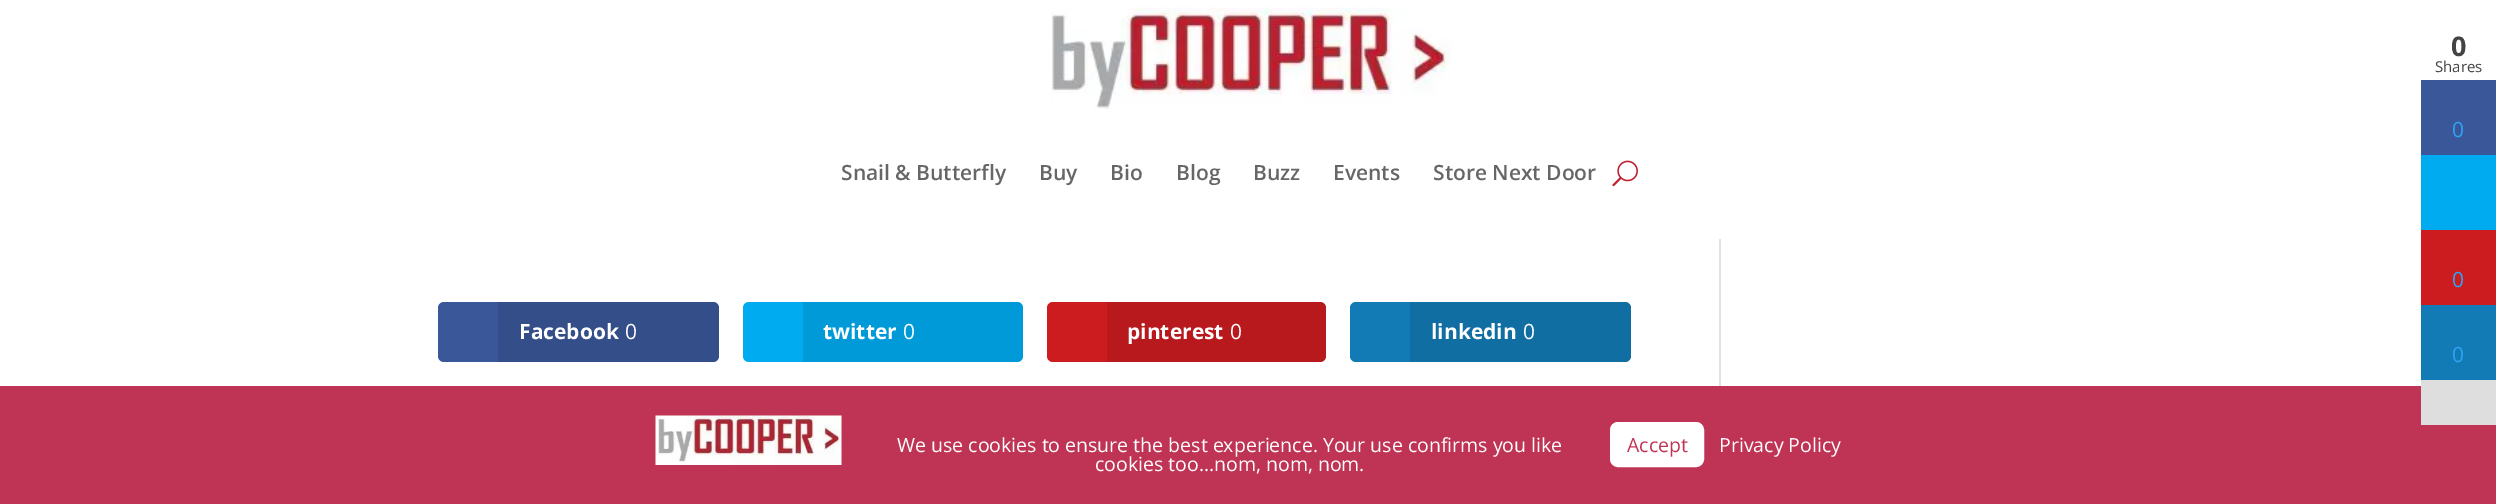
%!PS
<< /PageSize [2496 504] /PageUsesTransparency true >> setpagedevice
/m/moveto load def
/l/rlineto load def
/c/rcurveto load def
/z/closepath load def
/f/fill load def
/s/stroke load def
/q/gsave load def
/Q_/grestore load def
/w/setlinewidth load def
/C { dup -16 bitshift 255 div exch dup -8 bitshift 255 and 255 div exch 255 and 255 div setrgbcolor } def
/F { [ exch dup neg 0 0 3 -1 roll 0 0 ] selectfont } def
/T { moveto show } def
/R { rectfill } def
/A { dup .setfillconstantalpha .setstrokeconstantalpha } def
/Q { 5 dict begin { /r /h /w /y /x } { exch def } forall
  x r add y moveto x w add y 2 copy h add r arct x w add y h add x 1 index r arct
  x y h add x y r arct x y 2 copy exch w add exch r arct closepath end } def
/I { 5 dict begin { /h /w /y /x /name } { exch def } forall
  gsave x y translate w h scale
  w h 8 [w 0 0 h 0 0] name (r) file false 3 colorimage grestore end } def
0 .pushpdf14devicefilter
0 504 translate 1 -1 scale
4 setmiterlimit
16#FFFFFF C
0 0 2496 504 R
(1.rgb) 1051 7 400 102 I
/OpenSans-SemiBold 21 F
16#666666 C
(Snail & Butterfly) 841 180 T
(Buy) 1039 180 T
(Bio) 1110 180 T
(Blog) 1176 180 T
(Buzz) 1253 180 T
(Events) 1333 180 T
(Store Next Door) 1433 180 T
(2.rgb) 1612 160 26 27 I
16#3A579A C
438 302 281 60 6 Q f
0.1 A
16#000000 C
498 302 m 215 0 l 3.5 0 6 2.5 6 6 c 0 48 l 0 3.5 -2.5 6 -6 6 c -215 0 l z f
/OpenSans-Bold 21 F
1 A
16#FFFFFF C
(Facebook) 519 339 T
/OpenSans-Regular 21 F
(0) 625 339 T
16#00ABF0 C
743 302 280 60 6 Q f
0.1 A
16#000000 C
803 302 m 214 0 l 3.5 0 6 2.5 6 6 c 0 48 l 0 3.5 -2.5 6 -6 6 c -214 0 l z f
/OpenSans-Bold 21 F
1 A
16#FFFFFF C
(twitter) 823 339 T
/OpenSans-Regular 21 F
(0) 903 339 T
16#CD1C1F C
1047 302 279 60 6 Q f
0.1 A
16#000000 C
1107 302 m 213 0 l 3.5 0 6 2.5 6 6 c 0 48 l 0 3.5 -2.5 6 -6 6 c -213 0 l z f
/OpenSans-Bold 21 F
1 A
16#FFFFFF C
(pinterest) 1127 339 T
/OpenSans-Regular 21 F
(0) 1230 339 T
16#127BB6 C
1350 302 281 60 6 Q f
0.1 A
16#000000 C
1410 302 m 215 0 l 3.5 0 6 2.5 6 6 c 0 48 l 0 3.5 -2.5 6 -6 6 c -215 0 l z f
/OpenSans-Bold 21 F
1 A
16#FFFFFF C
(linkedin) 1431 339 T
/OpenSans-Regular 21 F
(0) 1523 339 T
16#E2E2E2 C
1719 239 2 147 R
/OpenSans-Bold 27 F
16#444444 C
(0) 2451 56 T
/OpenSans-Regular 15 F
(Shares) 2435 72 T
16#3A579A C
2421 80 75 75 R
/OpenSans-Regular 21 F
16#2EA3F2 C
(0) 2452 137 T
16#00ABF0 C
2421 155 75 75 R
16#CD1C1F C
2421 230 75 75 R
16#2EA3F2 C
(0) 2452 287 T
16#127BB6 C
2421 305 75 75 R
16#2EA3F2 C
(0) 2452 362 T
16#BF3455 C
0 386 2496 118 R
16#DEDEDE C
2421 380 75 45 R
(3.rgb) 655 415 187 50 I
/OpenSans-Regular 19.5 F
16#FFFFFF C
(We use cookies to ensure the best experience. Your use confirms you like) 897 452 T
(cookies too...nom, nom, nom.) 1095 471 T
1611 423 92 43 7 Q q f Q_
2 w
s
16#BF3455 C
(Accept) 1627 452 T
16#FFFFFF C
(Privacy Policy) 1719 452 T
.poppdf14devicefilter showpage
